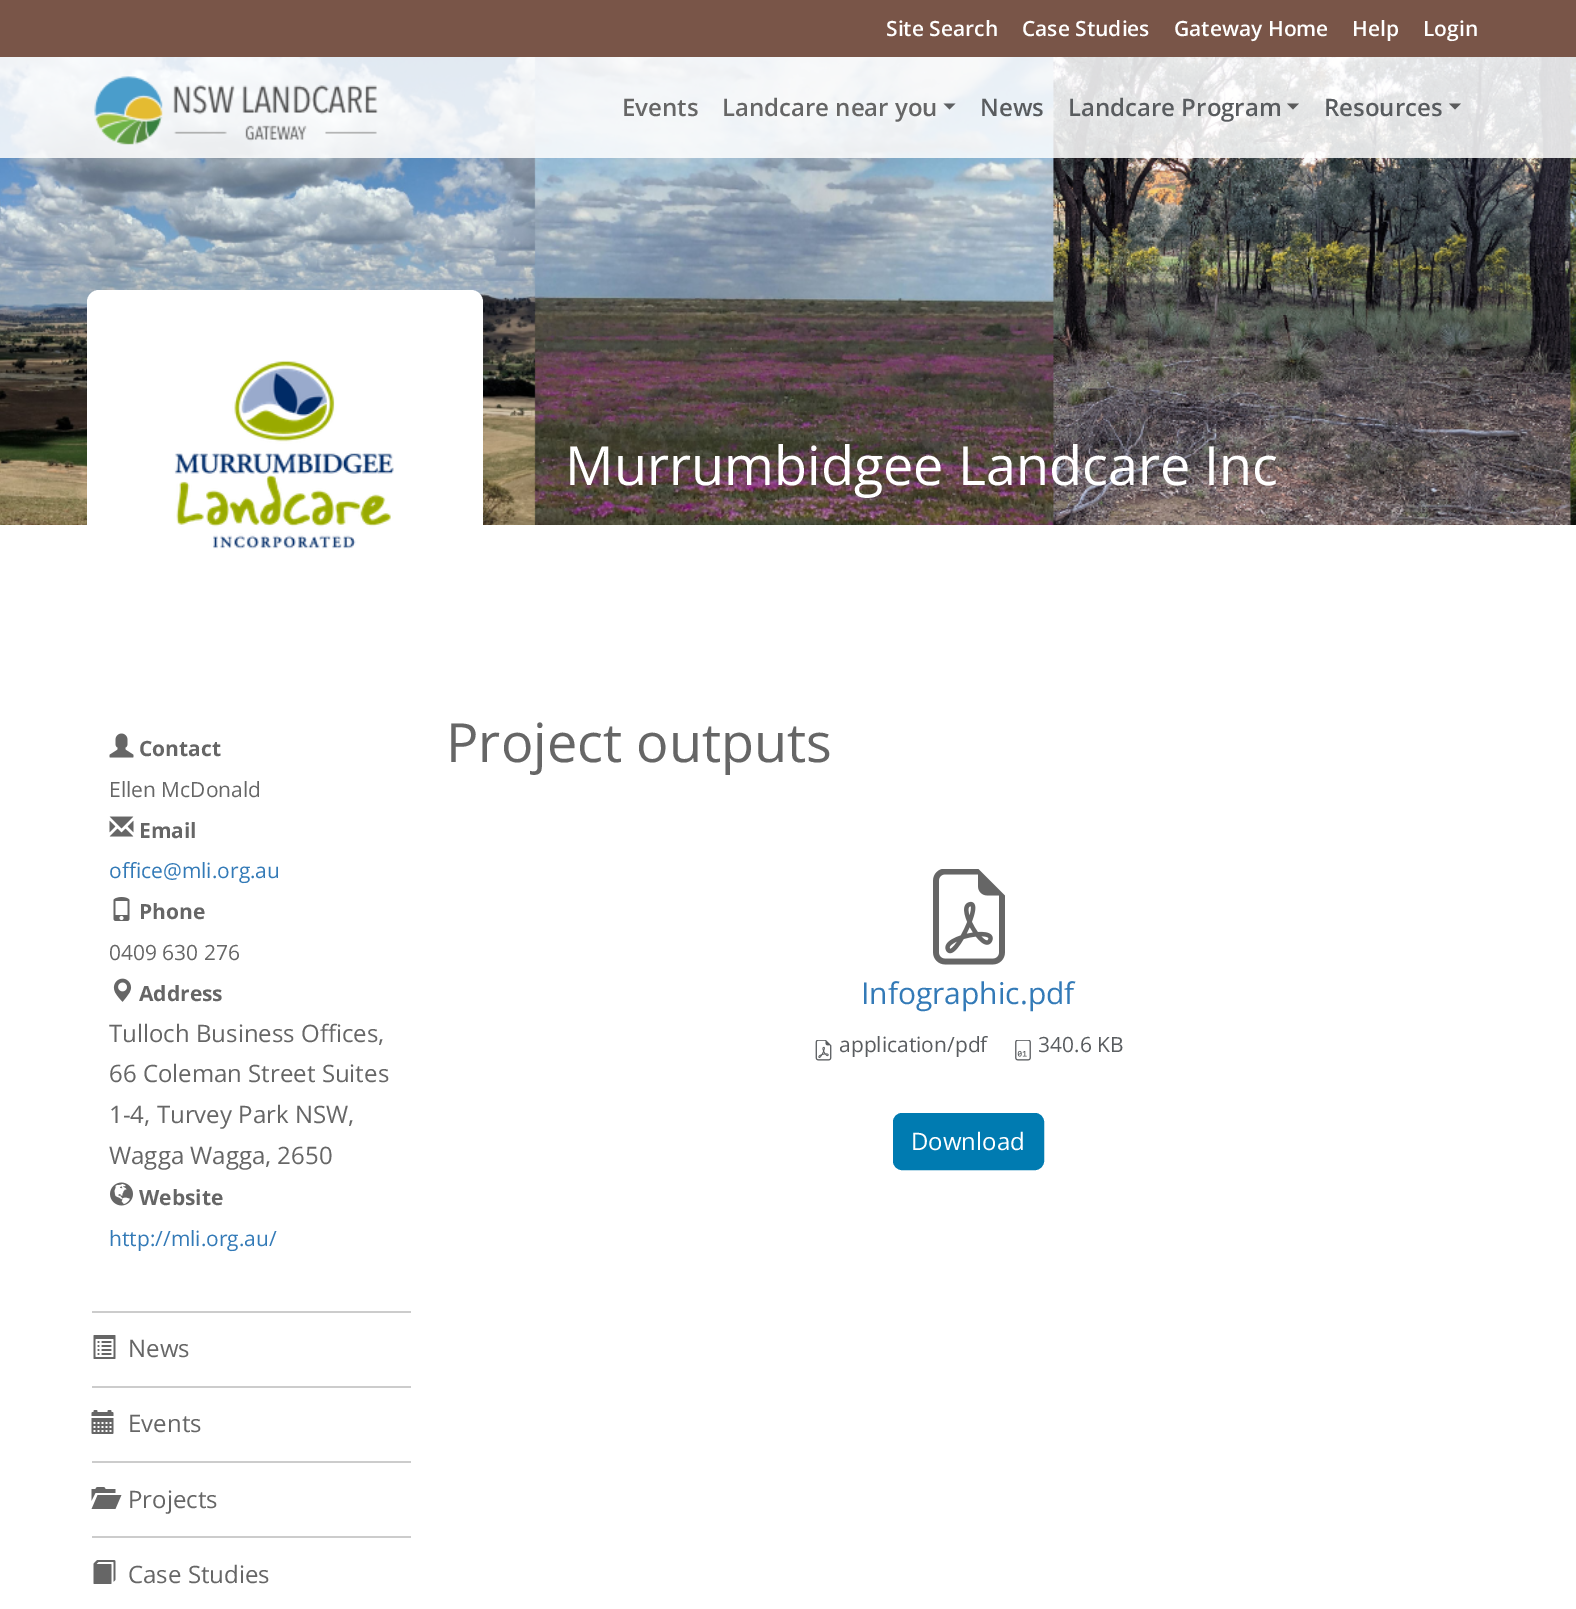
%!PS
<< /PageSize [1576 1609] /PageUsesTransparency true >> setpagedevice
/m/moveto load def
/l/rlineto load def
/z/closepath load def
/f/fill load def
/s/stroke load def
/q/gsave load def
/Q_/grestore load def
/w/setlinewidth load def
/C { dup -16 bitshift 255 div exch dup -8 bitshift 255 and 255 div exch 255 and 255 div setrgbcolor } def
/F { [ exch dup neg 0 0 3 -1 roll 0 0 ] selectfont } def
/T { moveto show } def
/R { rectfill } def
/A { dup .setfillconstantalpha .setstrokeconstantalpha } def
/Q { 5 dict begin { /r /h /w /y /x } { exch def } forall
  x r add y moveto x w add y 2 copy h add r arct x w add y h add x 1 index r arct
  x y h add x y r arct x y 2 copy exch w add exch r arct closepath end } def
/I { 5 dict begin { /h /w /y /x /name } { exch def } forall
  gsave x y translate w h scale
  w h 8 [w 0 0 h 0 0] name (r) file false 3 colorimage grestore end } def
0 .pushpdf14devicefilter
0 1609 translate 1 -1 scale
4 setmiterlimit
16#FFFFFF C
0 0 1576 1609 R
16#795548 C
0 0 1576 57 R
/OpenSans-SemiBold 21 F
16#FFFFFF C
(Site Search) 886 36 T
(Case Studies) 1022 36 T
(Gateway Home) 1174 36 T
(Help) 1352 36 T
(Login) 1423 36 T
(2.rgb) 0 57 1576 468 I
0.85 A
0 57 1576 101 R
1 A
(1.rgb) 94 76 284 69 I
/OpenSans-SemiBold 24 F
16#666666 C
(Events) 622 116 T
(Landcare near you) 722 116 T
0.6 A
16#000000 C
943.5 103.5 m 12 0 l -6 6 l z f
1 A
16#595C5F C
(News) 980 116 T
(Landcare Program) 1068 116 T
0.6 A
16#000000 C
1287 103.5 m 12 0 l -6 6 l z f
1 A
16#595C5F C
(Resources) 1324 116 T
0.6 A
16#000000 C
1449 103.5 m 12 0 l -6 6 l z f
1 A
16#FFFFFF C
87 290 396 330 12 Q f
(3.rgb) 174 360 220 189 I
/OpenSans-Regular 54 F
(Murrumbidgee Landcare Inc) 565 485 T
(4.rgb) 109 733 25 25 I
/OpenSans-Bold 21 F
16#666666 C
(Contact) 139 756 T
/OpenSans-Regular 21 F
(Ellen McDonald) 109 797 T
(5.rgb) 109 816 25 21 I
/OpenSans-Bold 21 F
(Email) 139 838 T
/OpenSans-Regular 21 F
16#337AB7 C
(office@mli.org.au) 109 878 T
(6.rgb) 113 897 17 24 I
/OpenSans-Bold 21 F
16#666666 C
(Phone) 139 919 T
q
110 932 352 40 rectclip
/OpenSans-Regular 21 F
(0409 630 276) 109 960 T
Q_
(7.rgb) 113 978 19 24 I
(Address) 139 1001 T
/OpenSans-Regular 24 F
(Tulloch Business Offices,) 109 1042 T
(66 Coleman Street Suites) 109 1082 T
(1-4, Turvey Park NSW,) 109 1123 T
(Wagga Wagga, 2650) 109 1164 T
(8.rgb) 110 1182 23 24 I
/OpenSans-Bold 21 F
(Website) 139 1205 T
/OpenSans-Regular 21 F
16#337AB7 C
(http://mli.org.au/) 109 1246 T
16#CCCCCC C
92 1311 319 2 R
92 1386 319 2 R
(9.rgb) 93 1335 23 24 I
/OpenSans-Regular 24 F
16#666666 C
(News) 128 1357 T
16#CCCCCC C
92 1461 319 2 R
(10.rgb) 91 1410 23 24 I
16#666666 C
(Events) 128 1432 T
16#CCCCCC C
92 1536 319 2 R
(11.rgb) 91 1487 31 22 I
16#666666 C
(Projects) 128 1508 T
(12.rgb) 93 1560 23 24 I
(Case Studies) 128 1583 T
/OpenSans-Regular 54 F
(Project outputs) 446 762 T
(13.rgb) 933 869 72 96 I
/OpenSans-Regular 30 F
16#337AB7 C
(Infographic.pdf) 861 1004 T
(14.rgb) 815 1040 17 21 I
/OpenSans-Regular 21 F
16#595C5F C
(application/pdf) 839 1052 T
(15.rgb) 1015 1040 16 21 I
(340.6 KB) 1038 1052 T
16#007BB1 C
894 1114 149 55 8 Q q f Q_
2 w
s
/OpenSans-Regular 24 F
16#FFFFFF C
(Download) 911 1150 T
.poppdf14devicefilter showpage
